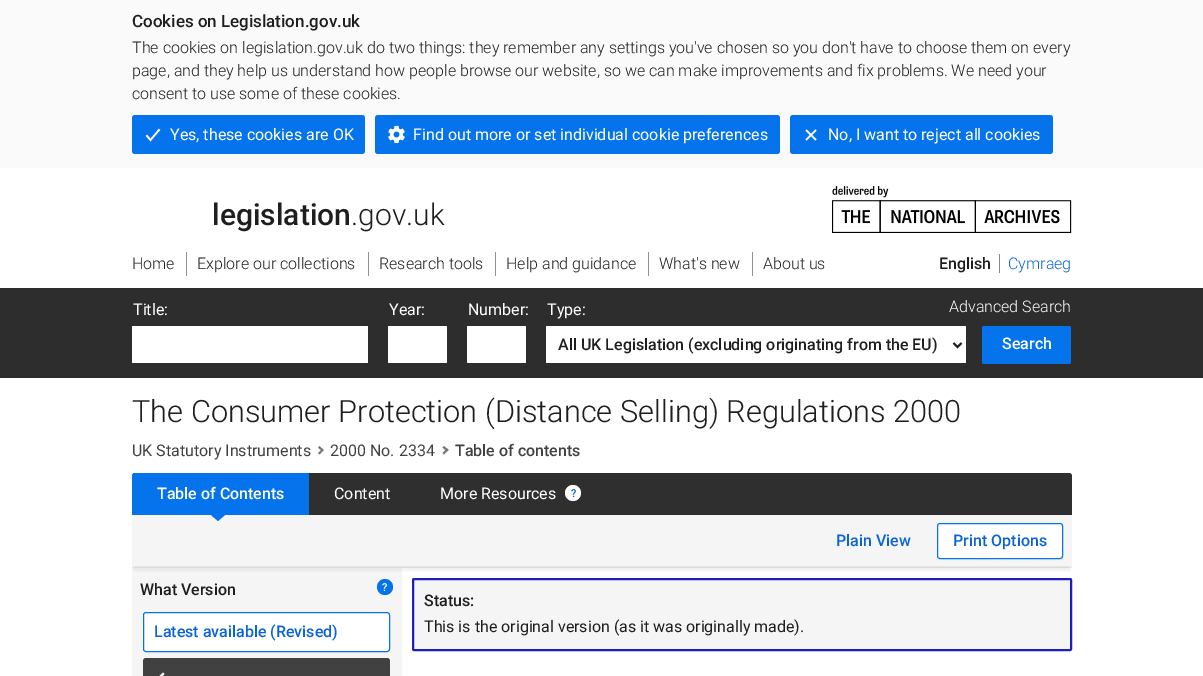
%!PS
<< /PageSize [1203 676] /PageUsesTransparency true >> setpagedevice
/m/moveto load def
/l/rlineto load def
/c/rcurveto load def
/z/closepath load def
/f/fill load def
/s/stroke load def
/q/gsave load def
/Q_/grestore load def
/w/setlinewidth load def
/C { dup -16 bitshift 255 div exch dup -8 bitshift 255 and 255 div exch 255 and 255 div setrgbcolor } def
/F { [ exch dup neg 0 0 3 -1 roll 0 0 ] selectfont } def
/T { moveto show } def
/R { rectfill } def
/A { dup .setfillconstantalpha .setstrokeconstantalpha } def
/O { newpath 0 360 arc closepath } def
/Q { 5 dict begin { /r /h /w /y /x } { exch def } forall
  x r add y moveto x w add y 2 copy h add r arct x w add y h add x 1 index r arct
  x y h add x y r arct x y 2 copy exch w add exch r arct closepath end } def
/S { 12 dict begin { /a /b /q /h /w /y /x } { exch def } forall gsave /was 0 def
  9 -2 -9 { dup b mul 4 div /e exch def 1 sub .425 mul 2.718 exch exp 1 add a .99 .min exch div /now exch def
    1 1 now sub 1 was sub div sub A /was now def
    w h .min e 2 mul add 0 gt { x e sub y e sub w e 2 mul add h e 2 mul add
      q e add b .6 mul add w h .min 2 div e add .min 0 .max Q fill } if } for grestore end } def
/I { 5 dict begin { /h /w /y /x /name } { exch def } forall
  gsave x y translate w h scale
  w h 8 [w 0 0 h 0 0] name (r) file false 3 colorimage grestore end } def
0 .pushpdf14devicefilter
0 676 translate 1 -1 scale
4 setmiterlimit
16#FFFFFF C
0 0 1203 676 R
16#FAFAFA C
0 0 1203 168 R
/Roboto-Medium 17 F
16#1E1E1E C
(Cookies on Legislation.gov.uk) 132 27 T
/Roboto-Light 16 F
(The cookies on legislation.gov.uk do two things: they remember any settings you've chosen so you don't have to choose them on every) 132 53 T
(page, and they help us understand how people browse our website, so we can make improvements and fix problems. We need your) 132 76 T
(consent to use some of these cookies.) 132 99 T
16#0573EB C
132 115 233 39 3 Q f
16#FFFFFF C
1.7 w
2 setlinecap
159 130 m -8.5 10 l -3.5 -4 l s
/Roboto-Regular 16 F
(Yes, these cookies are OK) 170 140 T
16#0573EB C
375 115 405 39 3 Q f
(1.rgb) 388 125 17 19 I
16#FFFFFF C
(Find out more or set individual cookie preferences) 413 140 T
16#0573EB C
790 115 263 39 3 Q f
(2.rgb) 805 129 12 12 I
16#FFFFFF C
(No, I want to reject all cookies) 828 140 T
/Roboto-Medium 30 F
16#1E1E1E C
(legislation) 212 225 T
/Roboto-Light 30 F
(.gov.uk) 351 225 T
(3.rgb) 832 186 240 47 I
/Roboto-Medium 16 F
(English) 939 269 T
16#878787 C
999 254 1 19 R
/Roboto-Light 16 F
16#0A64D7 C
(Cymraeg) 1008 269 T
16#2D2D2D C
0 288 1203 90 R
16#1E1E1E C
(Home) 132 269 T
16#919191 C
186 252 1 24 R
16#1E1E1E C
(Explore our collections) 197 269 T
16#919191 C
368 252 1 24 R
16#1E1E1E C
(Research tools) 379 269 T
16#919191 C
495 252 1 24 R
16#1E1E1E C
(Help and guidance) 506 269 T
16#919191 C
648 252 1 24 R
16#1E1E1E C
(What's new) 659 269 T
16#919191 C
752 252 1 24 R
16#1E1E1E C
(About us) 763 269 T
/Roboto-Regular 16 F
16#FFFFFF C
(Title:) 133 315 T
132 326 236 37 1 Q f
(Year:) 389 315 T
388 326 59 37 1 Q f
(Number:) 468 315 T
467 326 59 37 1 Q f
(Type:) 547 315 T
546 326 420 37 1 Q f
16#1E1E1E C
2 w
0 setlinecap
953.5 343 m 4 4 l 4 -4 l s
/Roboto-Medium 16 F
(All UK Legislation \(excluding originating from the EU\)) 558 350 T
/Roboto-Light 16 F
16#FFFFFF C
(Advanced Search) 949 312 T
16#0573EB C
982 326 89 38 2 Q f
/Roboto-Medium 16 F
16#FFFFFF C
(Search) 1002 349 T
/Roboto-Light 30.75 F
16#1E1E1E C
(The Consumer Protection \(Distance Selling\) Regulations 2000) 132 422 T
/Roboto-Regular 16 F
16#414141 C
(UK Statutory Instruments) 132 456 T
16#787878 C
319.5 446 m 4 4 l -1 1.5 l -4.5 -4 l z f
322.5 448.5 m 1 1.5 l -4 4.5 l -1.5 -1.5 l z f
16#414141 C
(2000 No. 2334) 330 456 T
16#787878 C
444 446 m 4.5 4 l -1.5 1.5 l -4.5 -4 l z f
447 448.5 m 1.5 1.5 l -4.5 4.5 l -1.5 -1.5 l z f
/Roboto-Medium 16 F
16#414141 C
(Table of contents) 455 456 T
16#2E2F2E C
135 473 m 934 0 l 1.5 0 3 1.5 3 3 c 0 39 l -940 0 l 0 -39 l 0 -1.5 1.5 -3 3 -3 c z f
16#0573EB C
135 473 m 174 0 l 0 42 l -177 0 l 0 -39 l 0 -1.5 1.5 -3 3 -3 c z f
16#FFFFFF C
(Table of Contents) 157 499 T
16#F5F5F5 C
132 515 940 52 R
16#0573EB C
211 515 m 14 0 l -7 6 l z f
/Roboto-Regular 16 F
16#FFFFFF C
(Content) 334 499 T
(More Resources) 440 499 T
573 493 8 O f
/Roboto-Medium 11 F
16#0A64D7 C
(?) 571 497 T
16#EBEBEB C
132 567 940 1 R
/Roboto-Medium 16 F
16#0A64D7 C
(Plain View) 836 546 T
16#FFFFFF C
937.5 523.5 125 35 2.5 Q q f Q_
16#0573EB C
1 w
s
16#0A64D7 C
(Print Options) 953 546 T
16#F5F5F5 C
132 568 270 108 R
16#1E1E1E C
(What Version) 140 595 T
16#0573EB C
385 587 8 O f
/Roboto-Medium 11 F
16#FFFFFF C
(?) 382 591 T
143.5 612.5 246 39 2.5 Q q f Q_
16#0573EB C
s
/Roboto-Medium 16 F
16#0A64D7 C
(Latest available \(Revised\)) 154 637 T
16#414141 C
143 658 247 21 3 Q f
16#FFFFFF C
163 672.5 m 1.5 1.5 l -7.5 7.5 l -1.5 -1 l z f
16#F5F5F5 C
413 579 658 71 1 Q q f Q_
16#1E1EBE C
2 w
s
q
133 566 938 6 rectclip
16#010101 C
134 564 936 6 0 3 .07 S
Q_
16#1E1E1E C
(Status:) 424 606 T
/Roboto-Regular 16 F
(This is the original version \(as it was originally made\).) 424 632 T
.poppdf14devicefilter showpage
